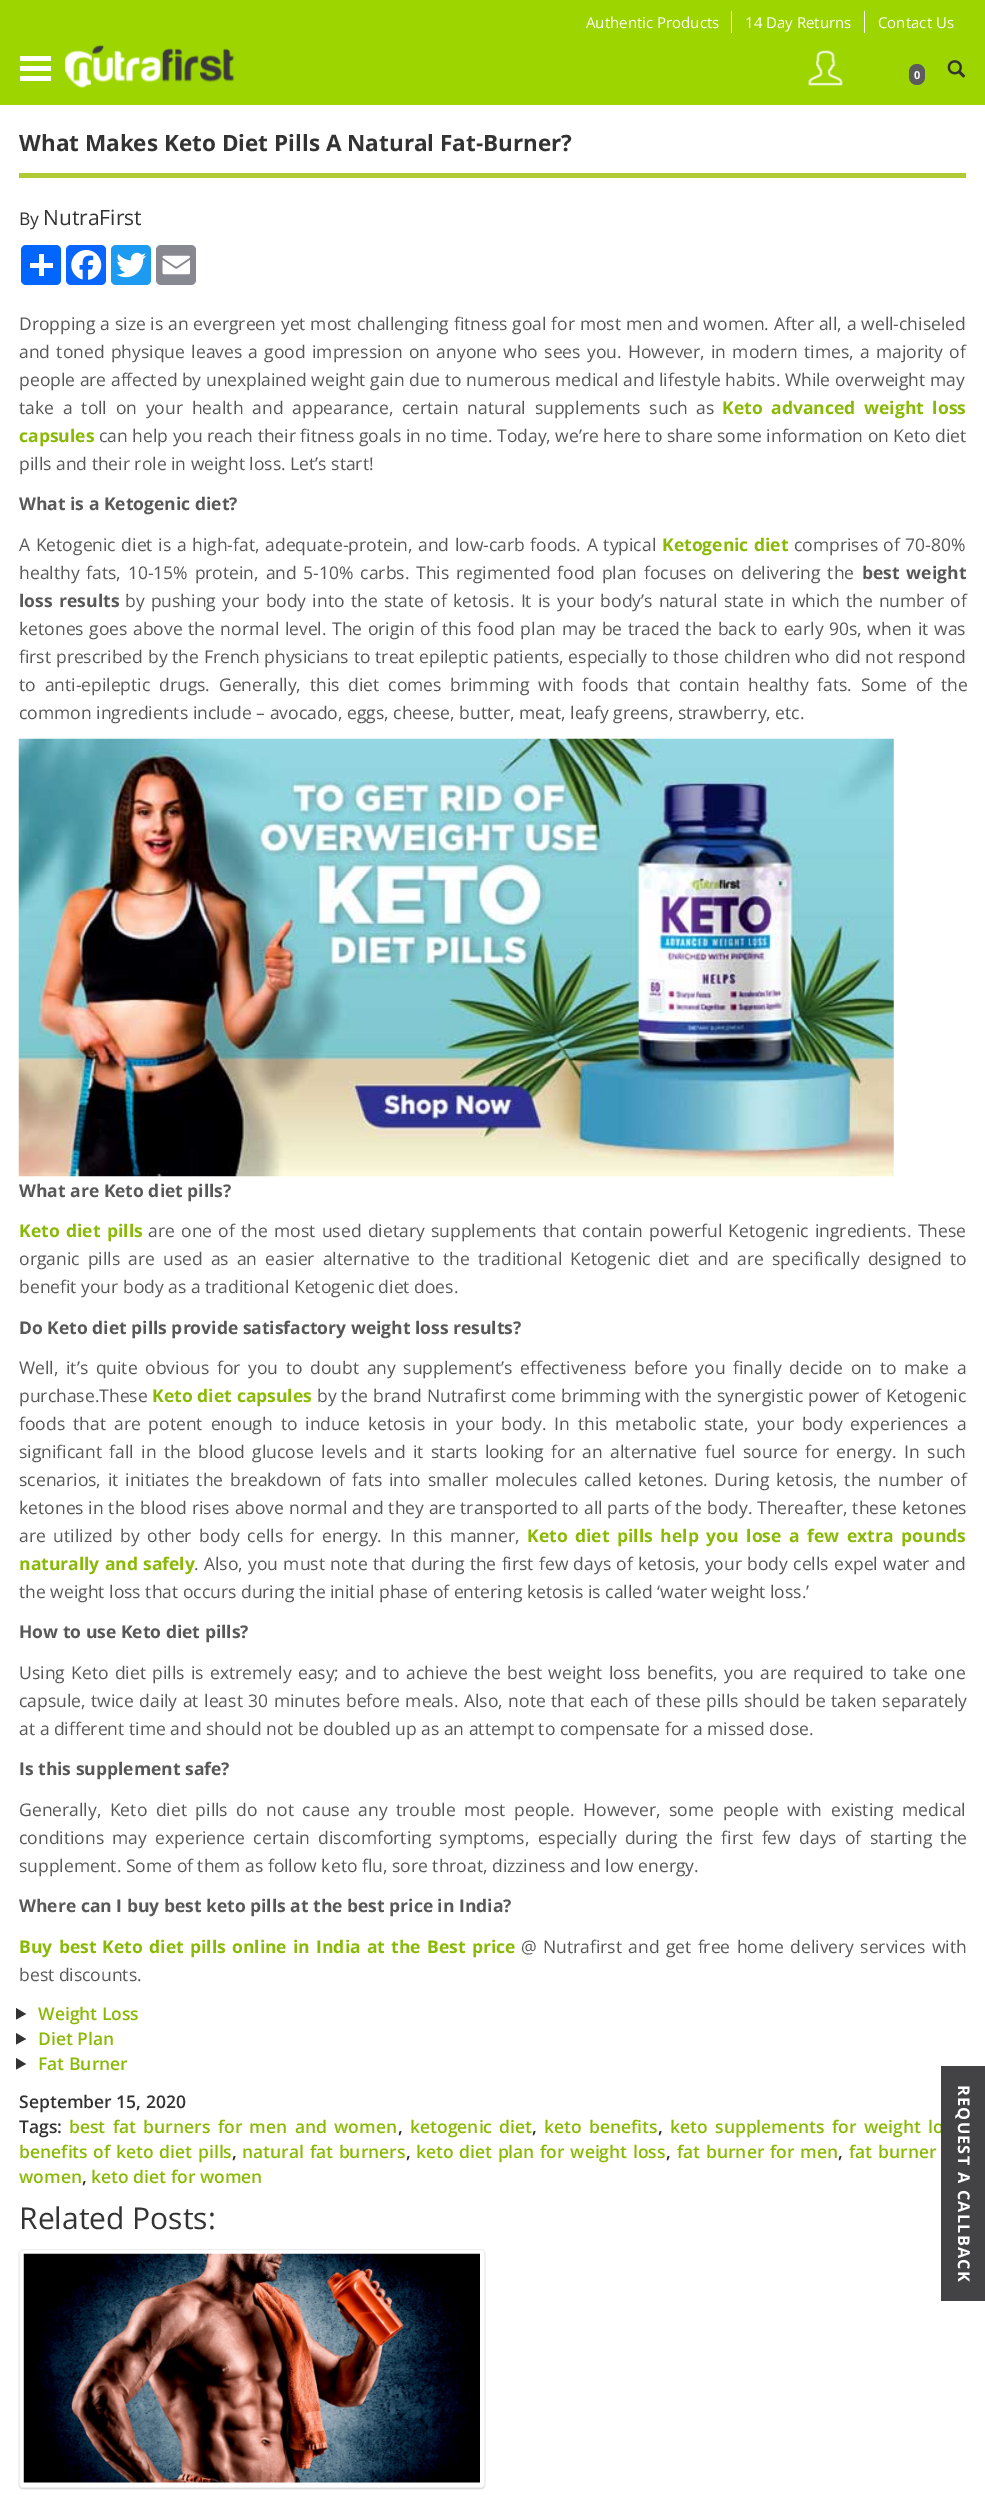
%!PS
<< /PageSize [985 2501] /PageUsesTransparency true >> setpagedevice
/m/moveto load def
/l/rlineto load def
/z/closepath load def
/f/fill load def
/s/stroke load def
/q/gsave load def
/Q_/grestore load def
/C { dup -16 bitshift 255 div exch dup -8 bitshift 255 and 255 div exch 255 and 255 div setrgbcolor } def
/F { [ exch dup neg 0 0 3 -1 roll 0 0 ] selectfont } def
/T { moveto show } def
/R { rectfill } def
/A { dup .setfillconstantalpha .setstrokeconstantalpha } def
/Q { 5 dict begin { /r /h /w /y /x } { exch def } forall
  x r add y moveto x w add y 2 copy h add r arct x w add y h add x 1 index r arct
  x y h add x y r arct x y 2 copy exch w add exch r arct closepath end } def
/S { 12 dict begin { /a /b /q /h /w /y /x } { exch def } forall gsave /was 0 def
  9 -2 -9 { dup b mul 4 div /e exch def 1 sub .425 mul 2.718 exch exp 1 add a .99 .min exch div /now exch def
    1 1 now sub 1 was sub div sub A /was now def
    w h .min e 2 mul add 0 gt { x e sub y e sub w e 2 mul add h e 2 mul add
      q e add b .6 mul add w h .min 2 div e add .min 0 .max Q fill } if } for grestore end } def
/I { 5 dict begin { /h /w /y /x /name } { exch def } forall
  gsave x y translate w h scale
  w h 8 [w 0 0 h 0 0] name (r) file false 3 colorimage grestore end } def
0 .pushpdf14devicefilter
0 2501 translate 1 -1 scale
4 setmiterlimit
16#FFFFFF C
0 0 985 2501 R
16#9CD500 C
0 0 985 104 R
16#9ED505 C
0 104 985 1 R
16#FFFFFF C
731 11 1 22 R
/OpenSans-Regular 15 F
(Authentic Products) 586 28 T
864 11 1 22 R
(14 Day Returns) 745 28 T
(Contact Us) 878 28 T
20 56 31 5 1 Q f
20 66 31 5 1 Q f
20 76 31 5 1 Q f
(1.rgb) 65 45 170 44 I
(2.rgb) 808 50 35 36 I
16#5C5C5C C
909 64 16 21 8 Q f
/OpenSans-Bold 11 F
16#FFFFFF C
(0) 914 79 T
(3.rgb) 947 60 19 18 I
16#B0CA36 C
19 173 947 5 R
/OpenSans-Bold 22.5 F
16#333333 C
(What Makes Keto Diet Pills A Natural Fat-Burner?) 19 151 T
/OpenSans-Regular 17.5 F
(By) 19 225 T
/OpenSans-Regular 21 F
(NutraFirst) 43 225 T
16#0166FF C
21 245 40 40 5 Q f
16#FFFFFF C
39 254 5 22 R
30 263 23 5 R
16#0866FF C
66 245 40 40 5 Q f
(4.rgb) 71 250 31 30 I
16#1D9BF0 C
111 245 40 40 5 Q f
(5.rgb) 116 252 31 26 I
16#888990 C
156 245 40 40 5 Q f
(6.rgb) 162 255 28 20 I
/OpenSans-Regular 17.5 F
16#585858 C
19 330 m .3 0 32 (Dropping a size is an evergreen yet most challenging fitness goal for most men and women. After all, a well-chiseled) widthshow
19 358 m 1.75 0 32 (and toned physique leaves a good impression on anyone who sees you. However, in modern times, a majority of) widthshow
(people are affected by unexplained weight gain due to numerous medical and lifestyle habits. While overweight may) 19 386 T
19 414 m 4.25 0 32 (take a toll on your health and appearance, certain natural supplements such as) widthshow
/OpenSans-Bold 17.5 F
16#89B904 C
722 414 m 4.25 0 32 (Keto advanced weight loss) widthshow
(capsules) 19 442 T
/OpenSans-Regular 17.5 F
16#585858 C
(can help you reach their fitness goals in no time. Today, we’re here to share some information on Keto diet) 99 442 T
(pills and their role in weight loss. Let’s start!) 19 470 T
/OpenSans-Bold 17.5 F
(What is a Ketogenic diet?) 19 510 T
/OpenSans-Regular 17.5 F
19 551 m 1.1 0 32 (A Ketogenic diet is a high-fat, adequate-protein, and low-carb foods. A typical) widthshow
/OpenSans-Bold 17.5 F
16#89B904 C
662 551 m 1.1 0 32 (Ketogenic diet) widthshow
/OpenSans-Regular 17.5 F
16#585858 C
794 551 m 1 0 32 (comprises of 70-80%) widthshow
19 579 m 2.25 0 32 (healthy fats, 10-15% protein, and 5-10% carbs. This regimented food plan focuses on delivering the) widthshow
/OpenSans-Bold 17.5 F
862 579 m 2.25 0 32 (best weight) widthshow
19 607 m 2 0 32 (loss results) widthshow
/OpenSans-Regular 17.5 F
125 607 m 1.7 0 32 (by pushing your body into the state of ketosis. It is your body’s natural state in which the number of) widthshow
19 635 m 1 0 32 (ketones goes above the normal level. The origin of this food plan may be traced the back to early 90s, when it was) widthshow
19 663 m .25 0 32 (first prescribed by the French physicians to treat epileptic patients, especially to those children who did not respond) widthshow
19 691 m 4.25 0 32 (to anti-epileptic drugs. Generally, this diet comes brimming with foods that contain healthy fats. Some of the) widthshow
(common ingredients include – avocado, eggs, cheese, butter, meat, leafy greens, strawberry, etc.) 19 719 T
(7.rgb) 18 738 876 439 I
/OpenSans-Bold 17.5 F
(What are Keto diet pills?) 19 1197 T
16#89B904 C
19 1237 m 2 0 32 (Keto diet pills) widthshow
/OpenSans-Regular 17.5 F
16#585858 C
148 1237 m 1.75 0 32 (are one of the most used dietary supplements that contain powerful Ketogenic ingredients. These) widthshow
19 1265 m 3.6 0 32 (organic pills are used as an easier alternative to the traditional Ketogenic diet and are specifically designed to) widthshow
(benefit your body as a traditional Ketogenic diet does.) 19 1293 T
/OpenSans-Bold 17.5 F
(Do Keto diet pills provide satisfactory weight loss results?) 19 1334 T
/OpenSans-Regular 17.5 F
19 1374 m 3.1 0 32 (Well, it’s quite obvious for you to doubt any supplement’s effectiveness before you finally decide on to make a) widthshow
(purchase.These) 19 1402 T
/OpenSans-Bold 17.5 F
16#89B904 C
152 1402 m .4 0 32 (Keto diet capsules) widthshow
/OpenSans-Regular 17.5 F
16#585858 C
317 1402 m .4 0 32 (by the brand Nutrafirst come brimming with the synergistic power of Ketogenic) widthshow
19 1430 m 3.4 0 32 (foods that are potent enough to induce ketosis in your body. In this metabolic state, your body experiences a) widthshow
19 1458 m 2.9 0 32 (significant fall in the blood glucose levels and it starts looking for an alternative fuel source for energy. In such) widthshow
19 1486 m 2.25 0 32 (scenarios, it initiates the breakdown of fats into smaller molecules called ketones. During ketosis, the number of) widthshow
19 1514 m .25 0 32 (ketones in the blood rises above normal and they are transported to all parts of the body. Thereafter, these ketones) widthshow
19 1542 m 3.1 0 32 (are utilized by other body cells for energy. In this manner,) widthshow
/OpenSans-Bold 17.5 F
16#89B904 C
527 1542 m 3.1 0 32 (Keto diet pills help you lose a few extra pounds) widthshow
19 1570 m .75 0 32 (naturally and safely) widthshow
/OpenSans-Regular 17.5 F
16#585858 C
194 1570 m .75 0 32 (. Also, you must note that during the first few days of ketosis, your body cells expel water and) widthshow
(the weight loss that occurs during the initial phase of entering ketosis is called ‘water weight loss.’) 19 1598 T
/OpenSans-Bold 17.5 F
(How to use Keto diet pills?) 19 1638 T
/OpenSans-Regular 17.5 F
19 1679 m 1.8 0 32 (Using Keto diet pills is extremely easy; and to achieve the best weight loss benefits, you are required to take one) widthshow
19 1707 m 1 0 32 (capsule, twice daily at least 30 minutes before meals. Also, note that each of these pills should be taken separately) widthshow
(at a different time and should not be doubled up as an attempt to compensate for a missed dose.) 19 1735 T
/OpenSans-Bold 17.5 F
(Is this supplement safe?) 19 1775 T
/OpenSans-Regular 17.5 F
19 1816 m 4.1 0 32 (Generally, Keto diet pills do not cause any trouble most people. However, some people with existing medical) widthshow
19 1844 m 3.75 0 32 (conditions may experience certain discomforting symptoms, especially during the first few days of starting the) widthshow
(supplement. Some of them as follow keto flu, sore throat, dizziness and low energy.) 19 1872 T
/OpenSans-Bold 17.5 F
(Where can I buy best keto pills at the best price in India?) 19 1912 T
16#89B904 C
19 1953 m 1.75 0 32 (Buy best Keto diet pills online) widthshow
293 1953 m 1.75 0 32 (in India at the Best price) widthshow
/OpenSans-Regular 17.5 F
16#585858 C
521 1953 m 1.75 0 32 (@ Nutrafirst and get free home delivery services with) widthshow
(best discounts.) 19 1981 T
16#333333 C
16 2008 m 10 6 l -10 5.5 l z f
/OpenSans-SemiBold 17.5 F
16#89B904 C
(Weight Loss) 38 2020 T
16#333333 C
16 2033 m 10 6 l -10 5.5 l z f
16#89B904 C
(Diet Plan) 38 2045 T
16#333333 C
16 2058 m 10 6 l -10 5.5 l z f
16#89B904 C
(Fat Burner) 38 2070 T
16#333333 C
(September 15, 2020) 19 2108 T
(Tags:) 19 2133 T
16#89B904 C
69 2133 m 2.75 0 32 (best fat burners for men and women) widthshow
16#333333 C
(,) 398 2133 T
16#89B904 C
410 2133 m 2.75 0 32 (ketogenic diet) widthshow
16#333333 C
(,) 532 2133 T
16#89B904 C
544 2133 m 2.75 0 32 (keto benefits) widthshow
16#333333 C
(,) 658 2133 T
16#89B904 C
670 2133 m 2.75 0 32 (keto supplements for weight lo) widthshow
19 2158 m 1.1 0 32 (benefits of keto diet pills) widthshow
16#333333 C
(,) 232 2158 T
16#89B904 C
242 2158 m 1.1 0 32 (natural fat burners) widthshow
16#333333 C
(,) 406 2158 T
16#89B904 C
416 2158 m 1 0 32 (keto diet plan for weight loss) widthshow
16#333333 C
(,) 666 2158 T
16#89B904 C
677 2158 m 1 0 32 (fat burner for men) widthshow
16#333333 C
(,) 838 2158 T
16#89B904 C
849 2158 m 1.1 0 32 (fat burner) widthshow
(women) 19 2183 T
16#333333 C
(,) 82 2183 T
16#89B904 C
(keto diet for women) 91 2183 T
/OpenSans-Regular 30 F
16#333333 C
(Related Posts:) 19 2229 T
16#000000 C
19 2250 466 239 4 .5 .18 S
16#FFFFFF C
19.5 2249.5 465 238 3.5 Q q f Q_
16#EFEFEF C
s
(8.rgb) 23 2253 457 230 I
16#434244 C
941 2066 44 235 R
/OpenSans-Bold 16.25 F
16#FFFFFF C
q 958 2085 translate 90 rotate 0 0 m 1.25 0 (REQUEST A CALLBACK) ashow Q_
.poppdf14devicefilter showpage
